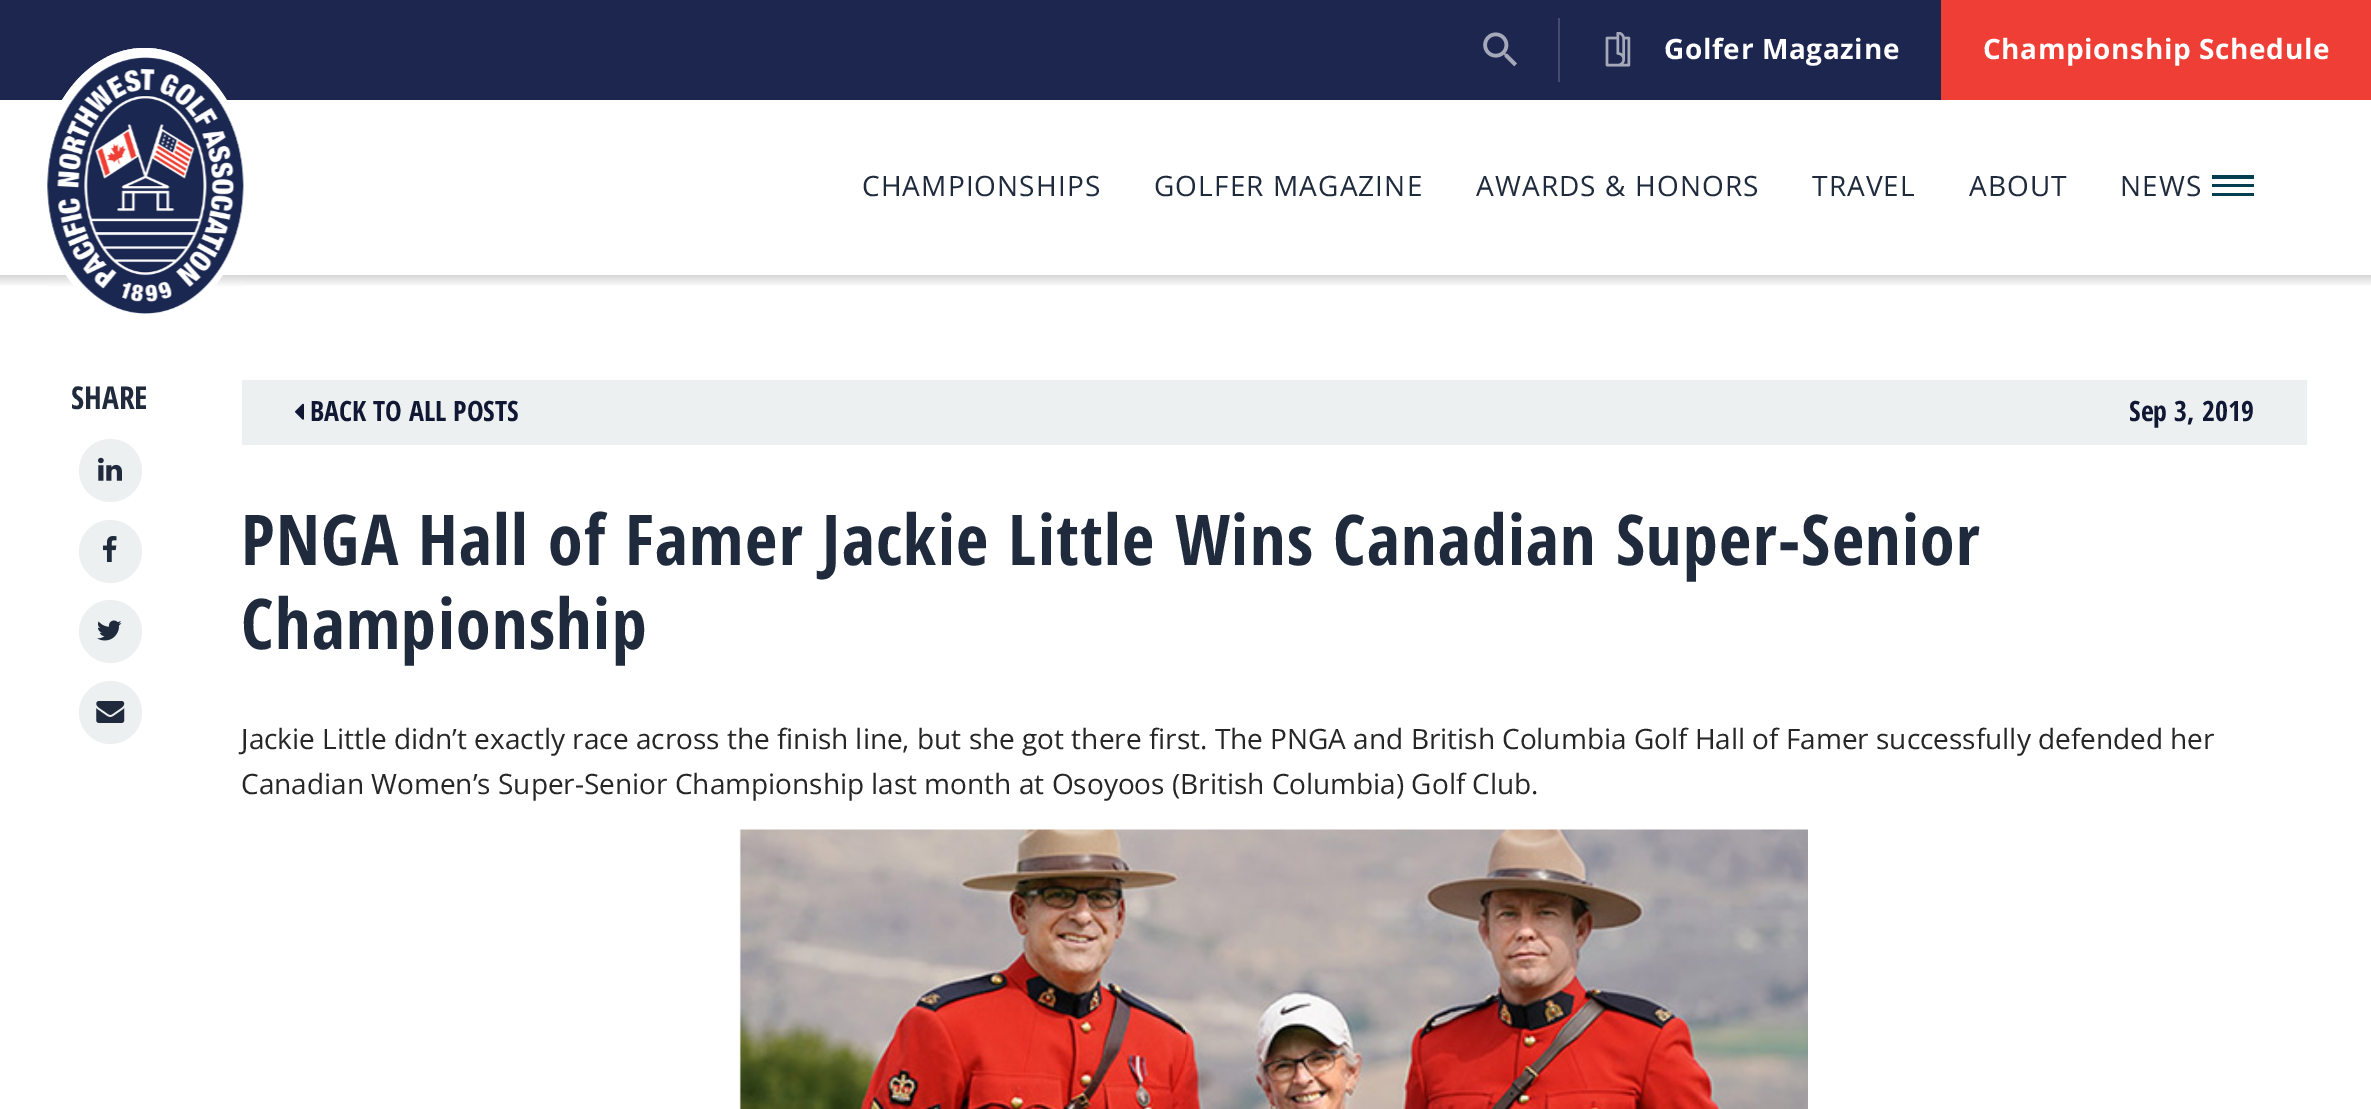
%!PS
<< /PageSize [2371 1109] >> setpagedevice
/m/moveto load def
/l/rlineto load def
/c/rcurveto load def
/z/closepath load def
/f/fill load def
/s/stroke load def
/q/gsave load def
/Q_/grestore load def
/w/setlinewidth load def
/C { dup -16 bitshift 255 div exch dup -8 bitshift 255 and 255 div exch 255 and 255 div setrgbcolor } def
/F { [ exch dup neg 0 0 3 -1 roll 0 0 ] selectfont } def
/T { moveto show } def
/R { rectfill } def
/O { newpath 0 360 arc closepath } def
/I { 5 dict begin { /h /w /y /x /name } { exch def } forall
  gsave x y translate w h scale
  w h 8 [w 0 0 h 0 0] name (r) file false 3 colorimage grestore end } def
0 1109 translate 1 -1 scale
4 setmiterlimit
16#FFFFFF C
0 0 2371 1109 R
16#1C264F C
0 0 1941 100 R
(1.rgb) 1483 32 34 35 I
16#454D6F C
1558 18 2 64 R
(2.rgb) 1605 32 26 35 I
/OpenSans-Bold 28 F
16#FFFFFF C
1664 59 m .6 0 (Golfer Magazine) ashow
16#EF3E35 C
1941 0 430 100 R
16#FFFFFF C
1983 59 m .6 0 (Championship Schedule) ashow
q 0 275 m 2371 0 l 0 11 l -2371 0 l z clip newpath
<< /ShadingType 2 /ColorSpace /DeviceRGB /Coords [1186 275 1186 287] /Extend [true true] /Function << /FunctionType 2 /Domain [0 1] /C0 [.839 .839 .839] /C1 [1 1 1] /N 1 >> >> shfill Q_
144.5 48 m 58 0 105 61 105 136.5 c 0 75.5 -47 136.5 -105 136.5 c -58 0 -105 -61 -105 -136.5 c 0 -75.5 47 -136.5 105 -136.5 c z f
7 w
144.5 51.5 m 55.5 0 101 59.5 101 133 c 0 73.5 -45.5 133 -101 133 c -56 0 -101.5 -59.5 -101.5 -133 c 0 -73.5 45.5 -133 101.5 -133 c z s
(3.rgb) 47 57 197 257 I
/OpenSans-Regular 28 F
16#1F2B3C C
862 196 m 1.1 0 (CHAMPIONSHIPS) ashow
1154 196 m 1.1 0 (GOLFER MAGAZINE) ashow
1476 196 m 1.1 0 (AWARDS & HONORS) ashow
1812 196 m 1.1 0 (TRAVEL) ashow
1969 196 m 1.1 0 (ABOUT) ashow
2120 196 m 1.1 0 (NEWS) ashow
16#003E51 C
2212 175 42 4 R
2212 184 42 3 R
2212 193 42 3 R
/OpenSansCondensed-Bold 31.5 F
16#1F2B3C C
(SHARE) 71 409 T
16#EDF0F1 C
110.5 470.5 31.5 O f
(4.rgb) 98 457 24 24 I
110.5 551.5 31.5 O f
(5.rgb) 103 536 14 26 I
110.5 631.5 31.5 O f
(6.rgb) 97 620 25 21 I
110.5 712.5 31.5 O f
(7.rgb) 96 701 29 22 I
242 380 2065 65 R
(8.rgb) 295 403 9 17 I
/OpenSansCondensed-Bold 28 F
16#111834 C
(BACK TO ALL POSTS) 310 421 T
(Sep 3, 2019) 2129 421 T
/OpenSansCondensed-Bold 70 F
16#1F2B3C C
241 565 m 1.4 0 (PNGA Hall of Famer Jackie Little Wins Canadian Super-Senior) ashow
241 649 m 1.4 0 (Championship) ashow
/OpenSans-Regular 28 F
16#262626 C
(Jackie Little didn’t exactly race across the finish line, but she got there first. The PNGA and British Columbia Golf Hall of Famer successfully defended her) 241 749 T
(Canadian Women’s Super-Senior Championship last month at Osoyoos \(British Columbia\) Golf Club.) 241 794 T
(9.rgb) 739 829 1069 280 I
showpage
